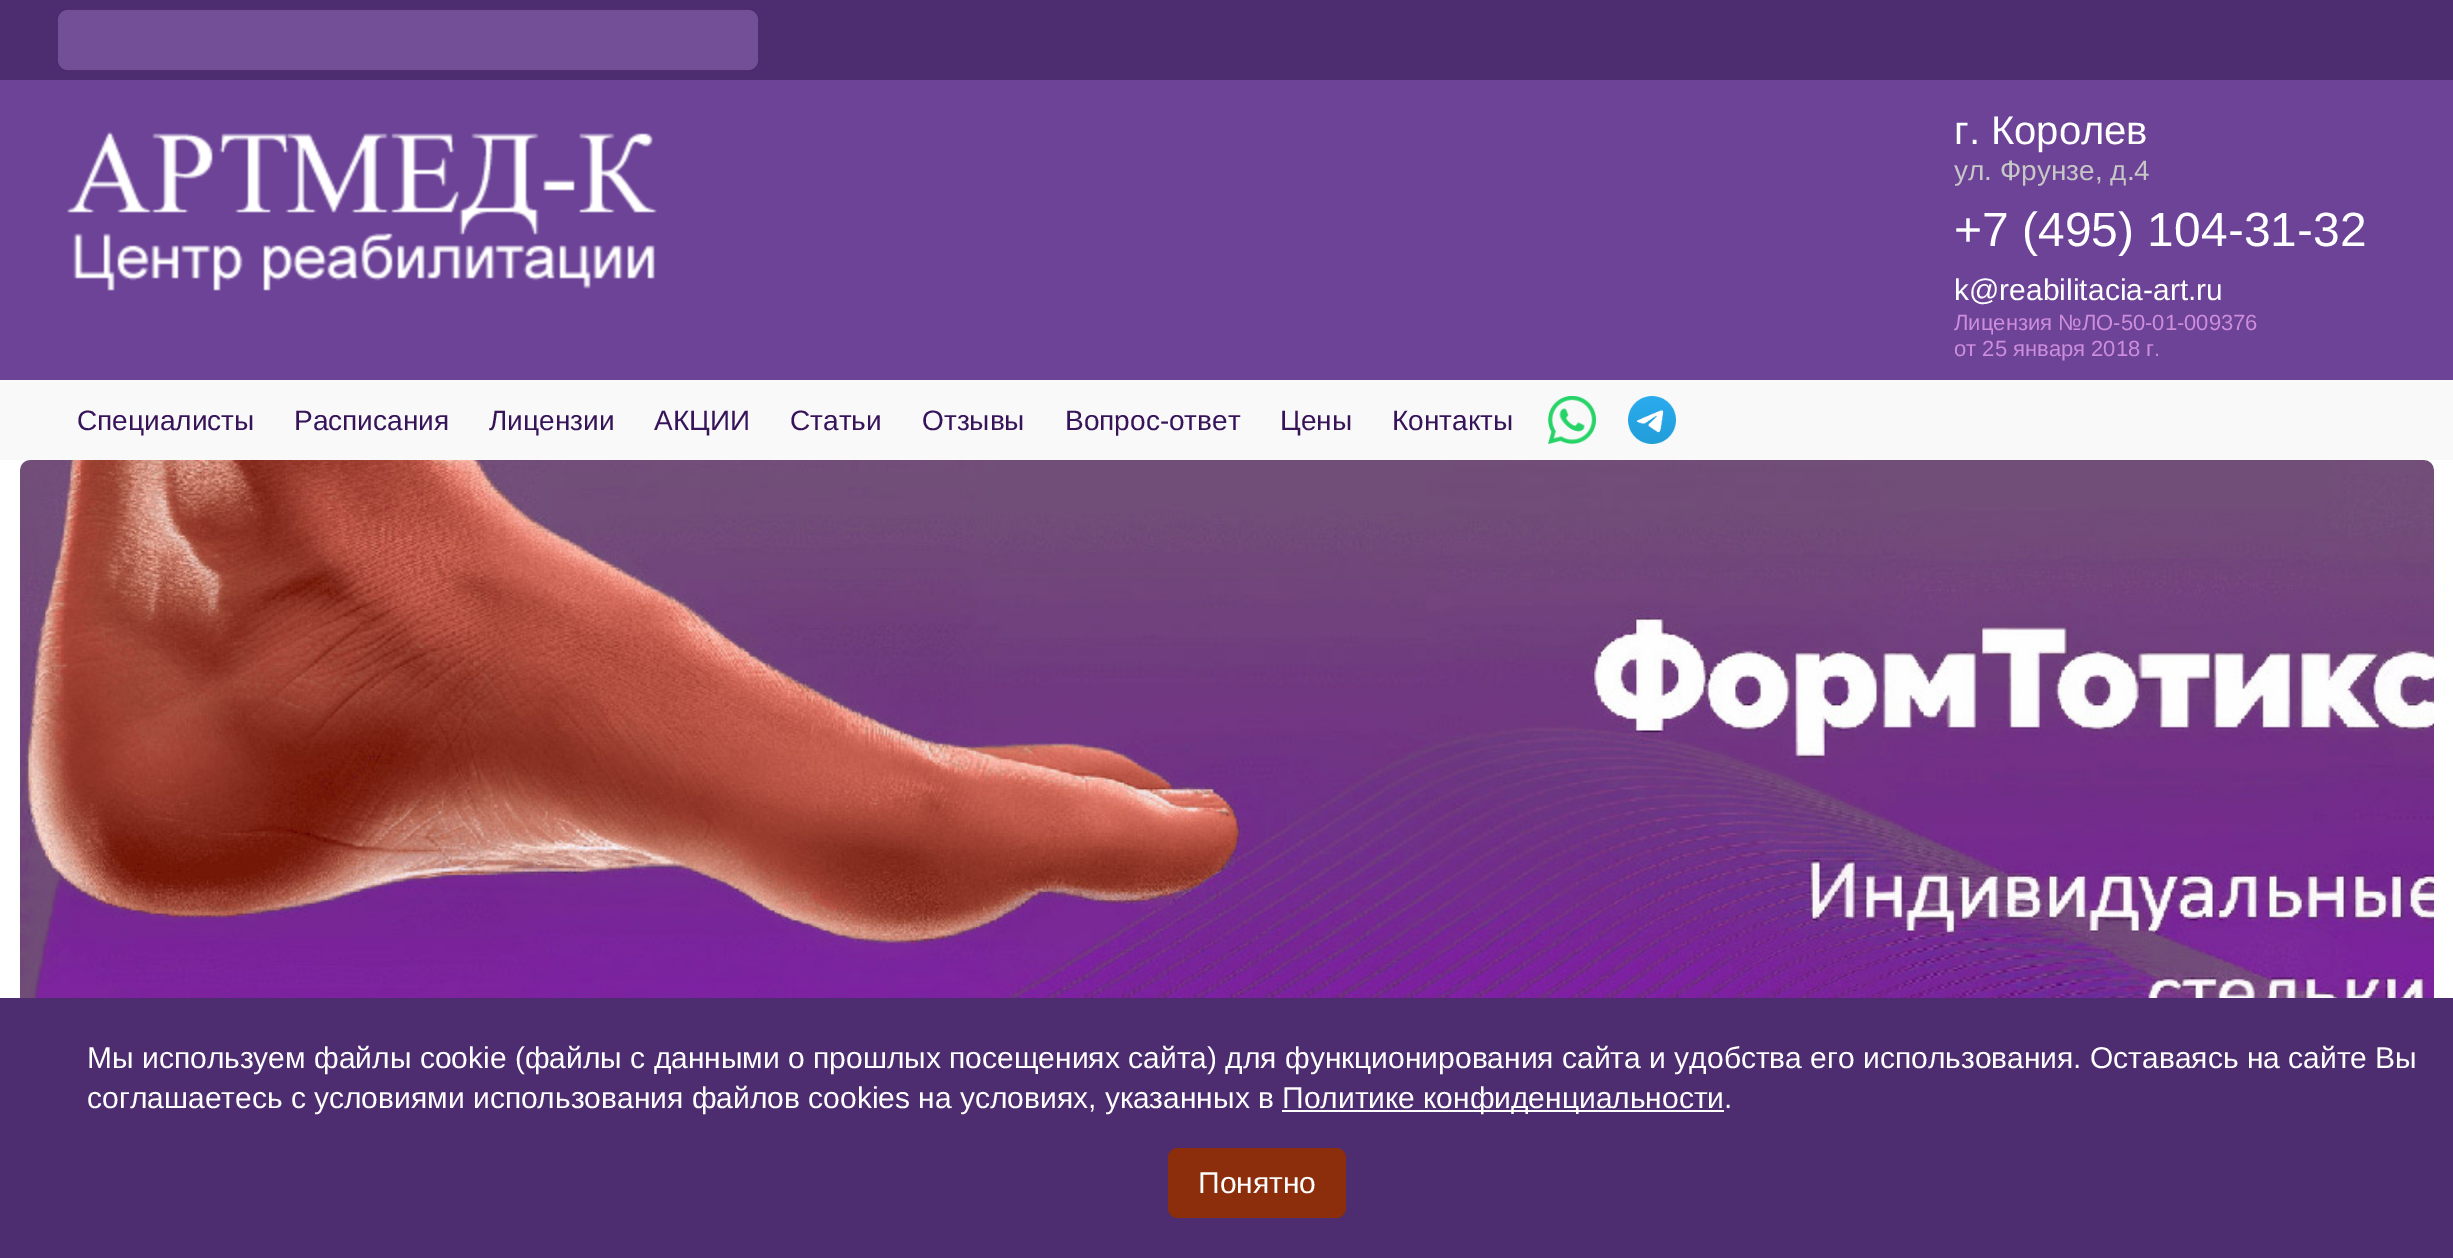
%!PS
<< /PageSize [2453 1258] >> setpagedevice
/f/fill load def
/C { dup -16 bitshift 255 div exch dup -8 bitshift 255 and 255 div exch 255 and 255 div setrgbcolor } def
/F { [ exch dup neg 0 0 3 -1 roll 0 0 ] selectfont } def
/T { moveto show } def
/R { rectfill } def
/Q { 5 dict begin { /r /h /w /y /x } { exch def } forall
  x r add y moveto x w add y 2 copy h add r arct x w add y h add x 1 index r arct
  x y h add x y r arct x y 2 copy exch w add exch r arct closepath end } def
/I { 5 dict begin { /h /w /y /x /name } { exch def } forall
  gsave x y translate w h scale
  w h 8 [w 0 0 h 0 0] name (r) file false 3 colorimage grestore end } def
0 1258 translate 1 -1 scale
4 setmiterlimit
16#FFFFFF C
0 0 2453 1258 R
16#4D2D6F C
0 0 2453 80 R
16#724F97 C
58 10 700 60 10 Q f
16#6C4397 C
0 80 2453 300 R
(1.rgb) 67 131 590 160 I
/LiberationSans-Regular 40 F
16#FFFFFF C
(г. Королев) 1954 144 T
/LiberationSans-Regular 28 F
16#C7C7C7 C
(ул. Фрунзе, д.4) 1954 180 T
/LiberationSans-Regular 48 F
16#FFFFFF C
(+7 \(495\) 104-31-32) 1954 246 T
/LiberationSans-Regular 30 F
(k@reabilitacia-art.ru) 1954 300 T
/LiberationSans-Regular 22 F
16#CE8DDC C
(Лицензия №ЛО-50-01-009376) 1954 330 T
(от 25 января 2018 г.) 1954 356 T
16#F9F9F9 C
0 380 2453 80 R
/LiberationSans-Regular 28 F
16#37145A C
(Специалисты) 77 430 T
(Расписания) 294 430 T
(Лицензии) 489 430 T
(АКЦИИ) 654 430 T
(Статьи) 790 430 T
(Отзывы) 922 430 T
(Вопрос-ответ) 1065 430 T
(Цены) 1280 430 T
(Контакты) 1392 430 T
(2.rgb) 1548 396 48 48 I
(3.rgb) 1628 396 48 48 I
(4.rgb) 20 460 2414 538 I
16#4D2D6F C
0 998 2453 260 R
/LiberationSans-Regular 30 F
16#FFFFFF C
(Мы используем файлы cookie \(файлы с данными о прошлых посещениях сайта\) для функционирования сайта и удобства его использования. Оставаясь на сайте Вы) 87 1068 T
(соглашаетесь с условиями использования файлов cookies на условиях, указанных в) 87 1108 T
1282 1110 442 2 R
(Политике конфиденциальности.) 1282 1108 T
16#8C2E0B C
1168 1148 178 70 10 Q f
16#FFFFFF C
(Понятно) 1198 1193 T
showpage
